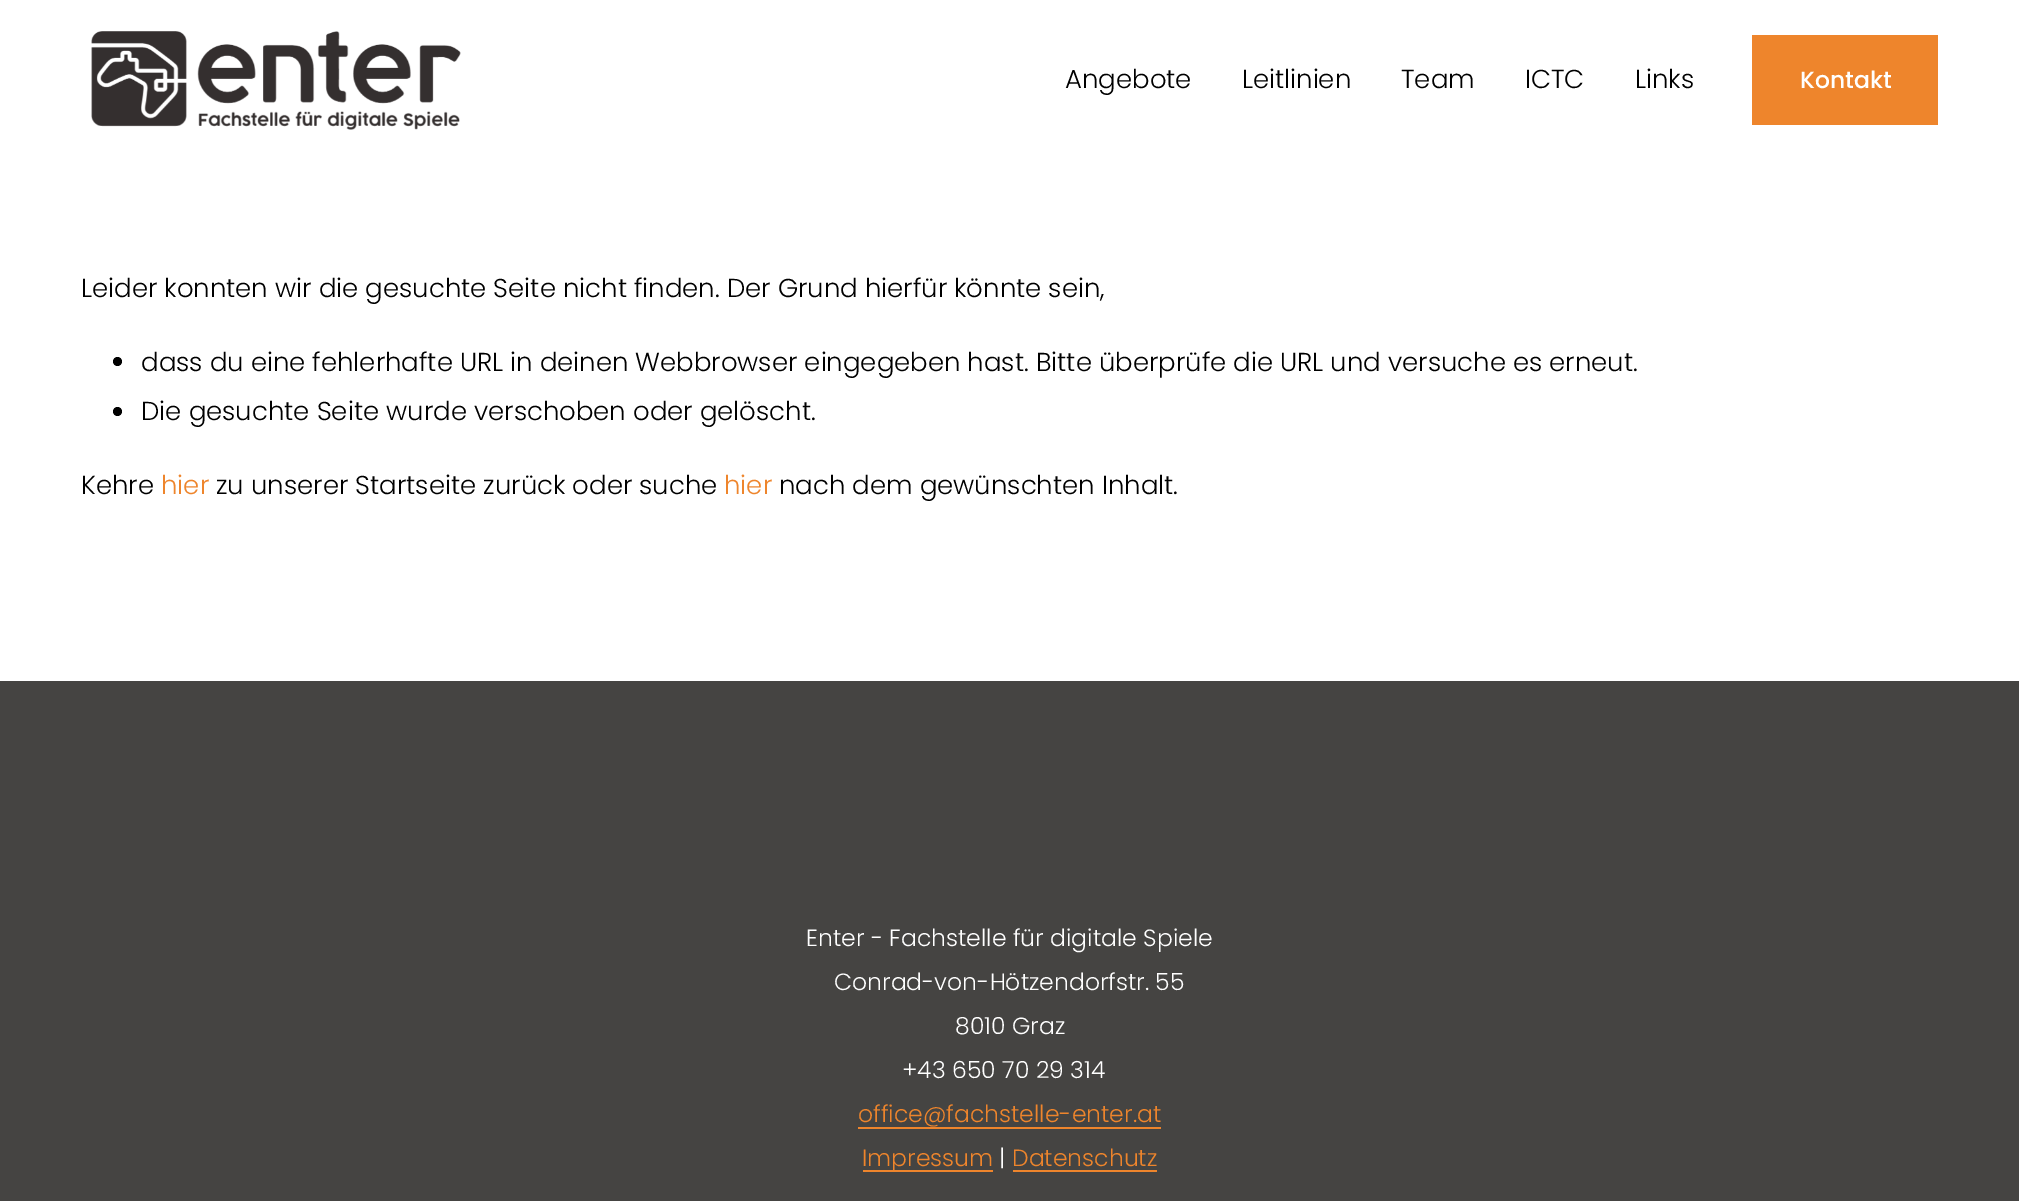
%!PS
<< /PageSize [2019 1201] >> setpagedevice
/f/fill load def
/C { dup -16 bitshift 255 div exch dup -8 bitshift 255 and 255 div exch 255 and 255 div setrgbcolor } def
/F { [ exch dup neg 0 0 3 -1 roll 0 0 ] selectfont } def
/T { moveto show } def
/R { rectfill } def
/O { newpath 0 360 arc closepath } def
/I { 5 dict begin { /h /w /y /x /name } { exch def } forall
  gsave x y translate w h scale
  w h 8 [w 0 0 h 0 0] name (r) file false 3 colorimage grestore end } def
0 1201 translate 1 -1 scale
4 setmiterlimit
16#FFFFFF C
0 0 2019 1201 R
(1.rgb) 91 31 370 99 I
/Poppins-Light 25.95 F
16#000000 C
(Angebote) 1065 88 T
(Leitlinien) 1242 88 T
(Team) 1401 88 T
(ICTC) 1525 88 T
(Links) 1635 88 T
16#EE852C C
1752 35 186 90 R
/Poppins-Medium 23.5 F
16#FFFFFF C
(Kontakt) 1800 88 T
/Poppins-Light 25.95 F
16#000000 C
(Leider konnten wir die gesuchte Seite nicht finden. Der Grund hierfür könnte sein,) 81 297 T
117.5 361.5 4.5 O f
(dass du eine fehlerhafte URL in deinen Webbrowser eingegeben hast. Bitte überprüfe die URL und versuche es erneut.) 141 371 T
117.5 411.5 4.5 O f
(Die gesuchte Seite wurde verschoben oder gelöscht.) 141 420 T
(Kehre) 81 494 T
16#EE852C C
(hier) 161 494 T
16#000000 C
(zu unserer Startseite zurück oder suche) 216 494 T
16#EE852C C
(hier) 724 494 T
16#000000 C
(nach dem gewünschten Inhalt.) 779 494 T
16#454442 C
0 681 2019 520 R
/Poppins-Light 23.5 F
16#FFFFFF C
(Enter - Fachstelle für digitale Spiele) 806 946 T
(Conrad-von-Hötzendorfstr. 55) 834 990 T
(8010 Graz) 955 1034 T
(+43 650 70 29 314) 902 1078 T
16#EE852C C
(office@fachstelle-enter.at) 858 1122 T
858 1127 303 2 R
863 1170 130 2 R
(Impressum) 862 1166 T
16#FFFFFF C
(|) 999 1166 T
16#EE852C C
(Datenschutz) 1012 1166 T
1013 1170 144 2 R
showpage
